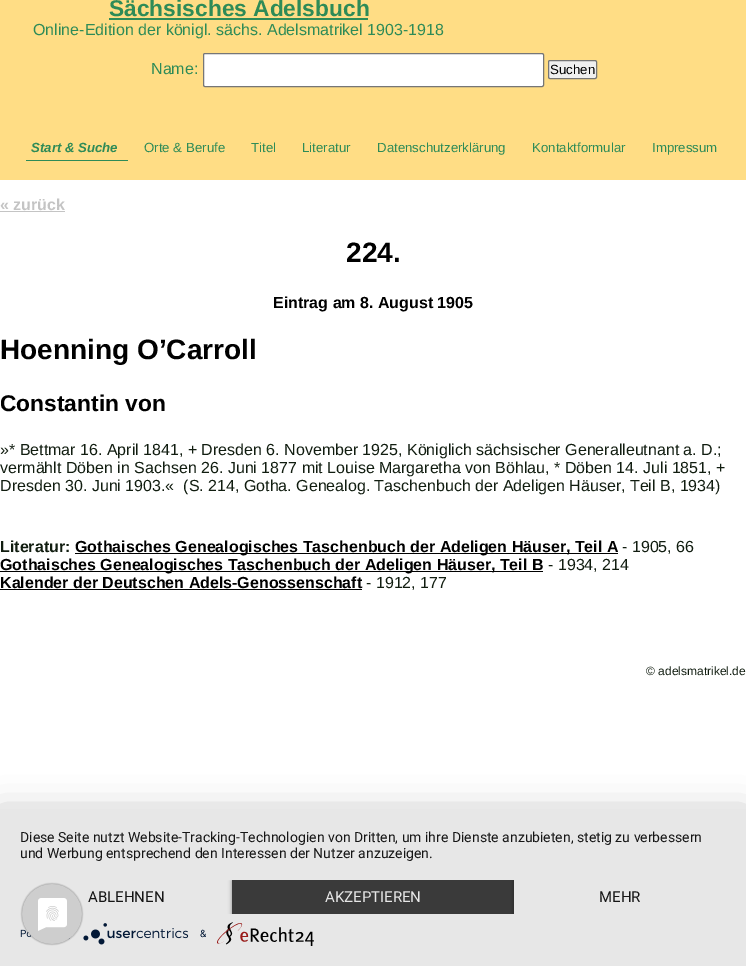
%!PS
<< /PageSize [746 966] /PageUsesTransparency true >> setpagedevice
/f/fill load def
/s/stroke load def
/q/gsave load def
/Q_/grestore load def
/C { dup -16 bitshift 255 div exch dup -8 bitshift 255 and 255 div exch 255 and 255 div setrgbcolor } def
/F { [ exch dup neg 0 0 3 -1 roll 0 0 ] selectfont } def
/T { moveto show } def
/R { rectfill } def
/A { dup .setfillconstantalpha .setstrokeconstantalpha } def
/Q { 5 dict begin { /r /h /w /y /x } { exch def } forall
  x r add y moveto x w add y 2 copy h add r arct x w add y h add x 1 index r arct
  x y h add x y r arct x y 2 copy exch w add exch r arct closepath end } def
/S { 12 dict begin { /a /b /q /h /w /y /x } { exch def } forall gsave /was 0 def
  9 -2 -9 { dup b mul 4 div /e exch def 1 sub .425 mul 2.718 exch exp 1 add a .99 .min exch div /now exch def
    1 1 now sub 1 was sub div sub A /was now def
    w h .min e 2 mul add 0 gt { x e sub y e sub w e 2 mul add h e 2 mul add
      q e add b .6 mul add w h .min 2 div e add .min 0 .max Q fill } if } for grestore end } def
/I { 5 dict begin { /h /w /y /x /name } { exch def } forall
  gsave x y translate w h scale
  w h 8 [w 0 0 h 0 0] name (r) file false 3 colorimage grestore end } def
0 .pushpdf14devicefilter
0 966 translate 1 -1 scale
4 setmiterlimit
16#FFFFFF C
0 0 746 966 R
16#FFDD85 C
0 0 746 180 R
/LiberationSans-Bold 22.75 F
16#2E8B57 C
(Sächsisches Adelsbuch) 109 16 T
109 18 259 2 R
/LiberationSans-Regular 16 F
(Online-Edition der königl. sächs. Adelsmatrikel 1903-1918) 33 35 T
(Name:) 151 74 T
16#FFFFFF C
203.5 53.5 340 33 1.5 Q q f Q_
16#767676 C
s
16#EFEFEF C
548.5 60.5 48 18 1.5 Q q f Q_
16#767676 C
s
/LiberationSans-Regular 13.25 F
16#000000 C
(Suchen) 550 74 T
16#2E8B57 C
26 160 102 1 R
/LiberationSans-BoldItalic 13.25 F
(Start & Suche) 31 152 T
/LiberationSans-Regular 13.25 F
(Orte & Berufe) 144 152 T
(Titel) 251 152 T
(Literatur) 302 152 T
(Datenschutzerklärung) 377 152 T
(Kontaktformular) 532 152 T
(Impressum) 652 152 T
/LiberationSans-Bold 16 F
16#C4C4C4 C
(« zurück) 0 210 T
0 211 65 1 R
/LiberationSans-Bold 28 F
16#000000 C
(224.) 346 262 T
/LiberationSans-Bold 16 F
(Eintrag am 8. August 1905) 273 308 T
/LiberationSans-Bold 28 F
(Hoenning O’Carroll) 0 359 T
/LiberationSans-Bold 22.75 F
(Constantin von) 0 411 T
/LiberationSans-Regular 16 F
16#111D10 C
(»* Bettmar 16. April 1841, + Dresden 6. November 1925, Königlich sächsischer Generalleutnant a. D.;) 0 455 T
(vermählt Döben in Sachsen 26. Juni 1877 mit Louise Margaretha von Böhlau, * Döben 14. Juli 1851, +) 0 473 T
(Dresden 30. Juni 1903.«  \(S. 214, Gotha. Genealog. Taschenbuch der Adeligen Häuser, Teil B, 1934\)) 0 491 T
/LiberationSans-Bold 16 F
(Literatur:) 0 552 T
16#000000 C
75 553 543 1 R
(Gothaisches Genealogisches Taschenbuch der Adeligen Häuser, Teil A) 75 552 T
/LiberationSans-Regular 16 F
16#111D10 C
(- 1905, 66) 622 552 T
16#000000 C
0 571 543 1 R
/LiberationSans-Bold 16 F
(Gothaisches Genealogisches Taschenbuch der Adeligen Häuser, Teil B) 0 570 T
/LiberationSans-Regular 16 F
16#111D10 C
(- 1934, 214) 548 570 T
/LiberationSans-Bold 16 F
16#000000 C
(Kalender der Deutschen Adels-Genossenschaft) 0 588 T
0 589 362 1 R
/LiberationSans-Regular 16 F
16#111D10 C
(- 1912, 177) 366 588 T
/LiberationSans-Regular 12 F
(© adelsmatrikel.de) 646 675 T
16#000000 C
0 815 746 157 0 18 .3 S
16#E7E7E7 C
0 809 746 157 R
/Roboto-Regular 14 F
16#161616 C
(Diese Seite nutzt Website-Tracking-Technologien von Dritten, um ihre Dienste anzubieten, stetig zu verbessern) 20 842 T
(und Werbung entsprechend den Interessen der Nutzer anzuzeigen.) 20 858 T
/Roboto-Regular 15 F
(ABLEHNEN) 88 902 T
q
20 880 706 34 rectclip
16#000000 C
232 881 282 34 0 2 .4 S
Q_
16#3A3A3A C
232 880 282 34 R
16#E6E6E6 C
(AKZEPTIEREN) 325 902 T
q
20 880 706 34 rectclip
16#000000 C
514 881 212 34 0 2 .4 S
Q_
16#E7E7E7 C
514 880 212 34 R
16#161616 C
(MEHR) 599 902 T
/Roboto-Regular 10 F
16#021836 C
(Po) 20 937 T
(1.rgb) 83 923 106 22 I
(&) 200 937 T
(2.rgb) 217 922 97 24 I
(3.rgb) 20 882 64 64 I
.poppdf14devicefilter showpage
